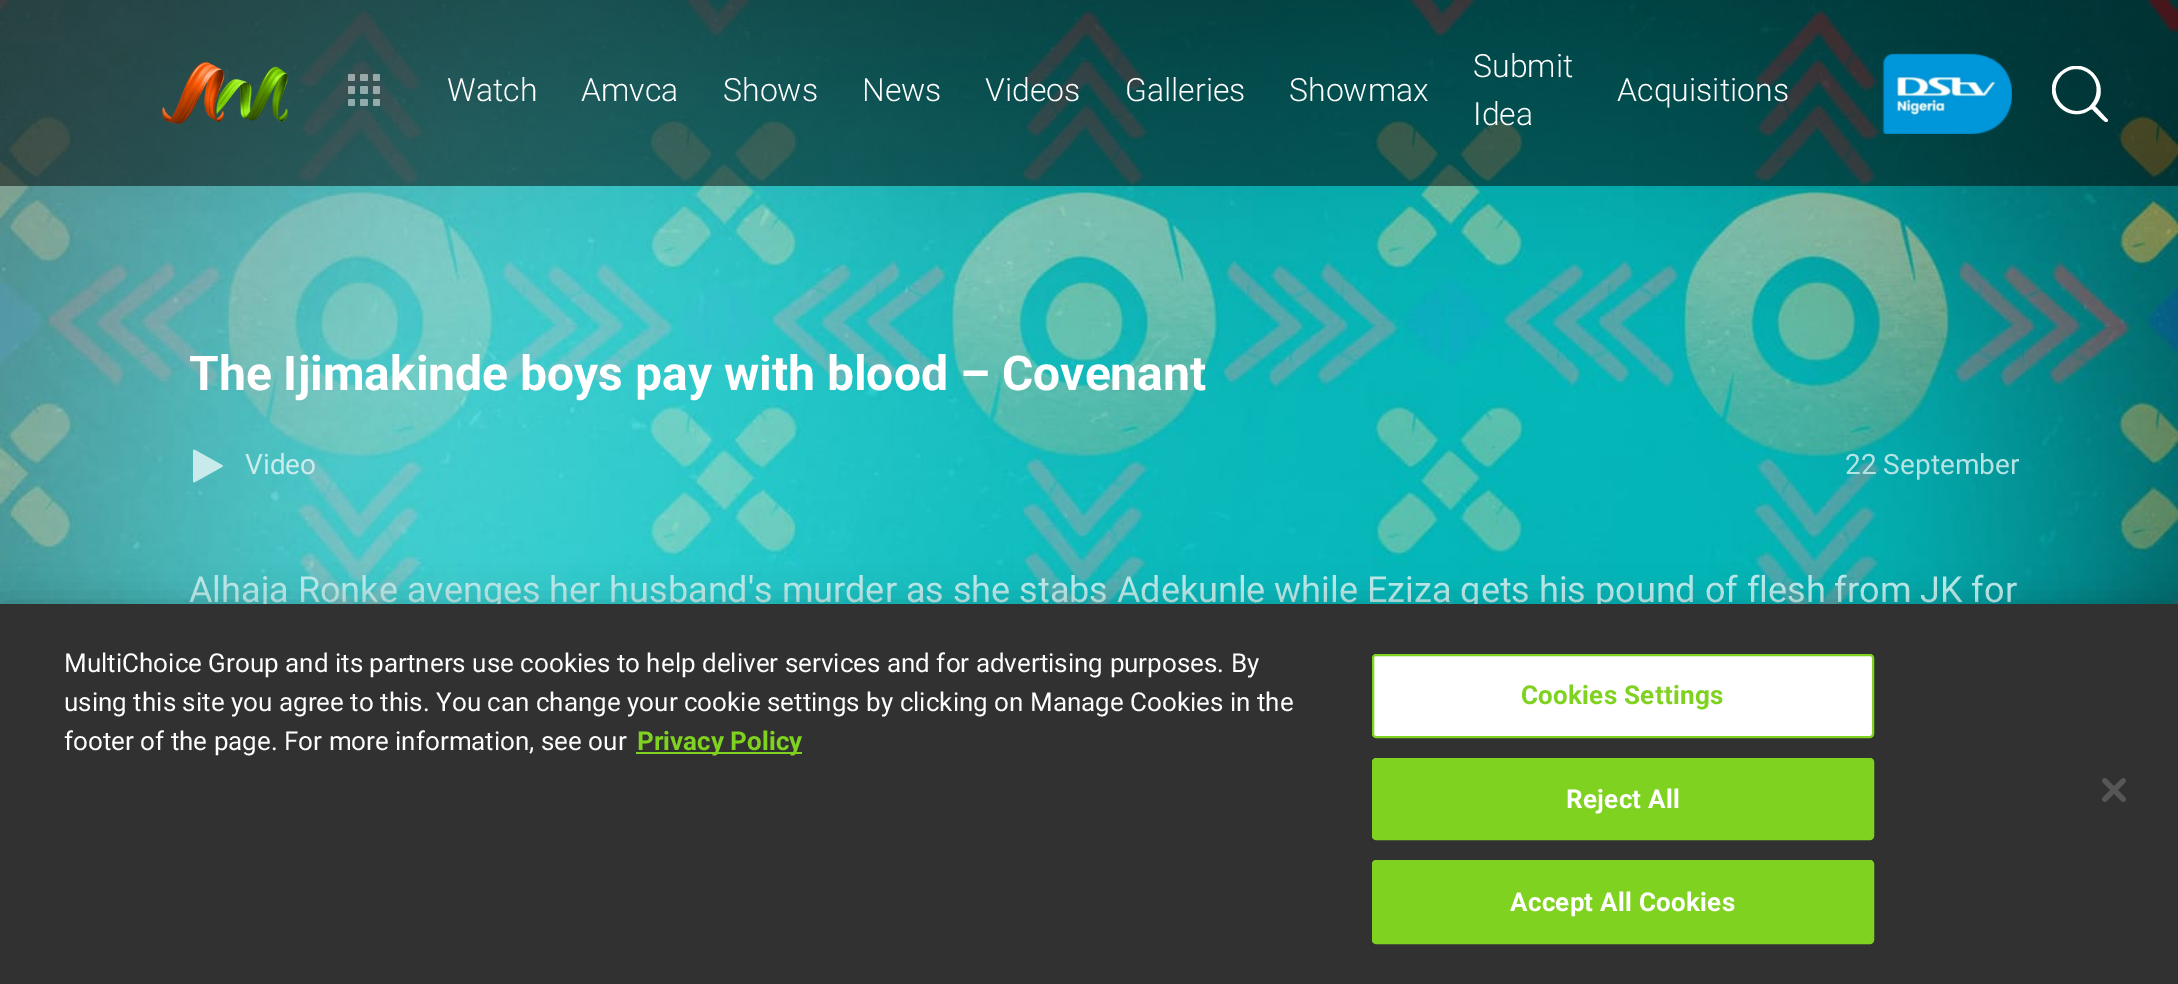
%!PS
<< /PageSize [2178 984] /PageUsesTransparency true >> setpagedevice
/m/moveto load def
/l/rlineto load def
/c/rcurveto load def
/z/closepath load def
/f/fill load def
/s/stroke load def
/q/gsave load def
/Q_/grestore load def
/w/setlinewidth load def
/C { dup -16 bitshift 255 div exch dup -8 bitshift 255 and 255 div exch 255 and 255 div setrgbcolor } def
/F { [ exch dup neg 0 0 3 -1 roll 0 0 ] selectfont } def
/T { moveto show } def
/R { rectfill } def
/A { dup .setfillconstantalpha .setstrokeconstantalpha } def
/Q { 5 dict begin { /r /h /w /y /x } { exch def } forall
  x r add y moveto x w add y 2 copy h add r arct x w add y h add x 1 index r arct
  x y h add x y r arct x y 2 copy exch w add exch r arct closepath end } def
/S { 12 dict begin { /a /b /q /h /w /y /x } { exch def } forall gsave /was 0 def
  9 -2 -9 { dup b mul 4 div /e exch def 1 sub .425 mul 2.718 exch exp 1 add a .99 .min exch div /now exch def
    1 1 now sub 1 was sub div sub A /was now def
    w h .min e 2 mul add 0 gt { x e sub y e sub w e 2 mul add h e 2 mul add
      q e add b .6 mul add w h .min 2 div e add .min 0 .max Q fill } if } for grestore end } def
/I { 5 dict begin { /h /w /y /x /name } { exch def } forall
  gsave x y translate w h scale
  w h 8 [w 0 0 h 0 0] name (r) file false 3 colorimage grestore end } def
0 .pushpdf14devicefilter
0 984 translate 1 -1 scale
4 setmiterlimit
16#FFFFFF C
0 0 2178 984 R
(1.rgb) 0 0 2178 604 I
0.5 A
16#000000 C
0 0 2178 186 R
1 A
(2.rgb) 162 62 127 62 I
(3.rgb) 348 74 32 32 I
/Roboto-Light 32 F
16#FFFFFF C
(Watch) 447 101 T
(Amvca) 581 101 T
(Shows) 723 101 T
(News) 862 101 T
(Videos) 985 101 T
(Galleries) 1125 101 T
(Showmax) 1289 101 T
(Submit) 1473 77 T
(Idea) 1473 125 T
(Acquisitions) 1617 101 T
(4.rgb) 1882 53 130 81 I
q
2052 66 56 56 rectclip
2107 119 m -12 -13 l 18 -21 -10 -53 -33 -35 c -23 16 -3 50 22 42 c 3 -1 5 -3 8 -4 c 2 2 12 13 14 13 c 2 0 3 -2 1 -3 c z 2089 107 m -21 15 -46 -15 -26 -33 c 15 -13 38 1 33 21 c -1 5 -4 9 -7 12 c z f
Q_
/Roboto-Bold 48 F
(The Ijimakinde boys pay with blood – Covenant) 189 390 T
(5.rgb) 193 449 30 34 I
/Roboto-Regular 28 F
16#CAECED C
(Video) 245 474 T
16#B5E3E4 C
(22 September) 1845 474 T
/Roboto-Regular 36 F
16#BBEBEB C
(Alhaja Ronke avenges her husband's murder as she stabs Adekunle while Eziza gets his pound of flesh from JK for) 189 602 T
16#000000 C
0 604 2178 380 0 18 .2 S
16#323132 C
0 604 2178 380 R
/Roboto-Regular 26 F
16#FFFFFF C
(MultiChoice Group and its partners use cookies to help deliver services and for advertising purposes. By) 64 672 T
(using this site you agree to this. You can change your cookie settings by clicking on Manage Cookies in the) 64 711 T
(footer of the page. For more information, see our) 64 750 T
16#80D221 C
636 752 166 2 R
/Roboto-Bold 26 F
(Privacy Policy) 637 750 T
16#FFFFFF C
1373 655 500 82 3 Q q f Q_
16#80D221 C
2 w
s
1521 704 m .25 0 (Cookies Settings) ashow
1373 759 500 80 3 Q q f Q_
s
16#FFFFFF C
1566 808 m .25 0 (Reject All) ashow
16#80D221 C
1373 861 500 82 3 Q q f Q_
s
16#FFFFFF C
1510 911 m .25 0 (Accept All Cookies) ashow
(6.rgb) 2102 778 24 24 I
.poppdf14devicefilter showpage
